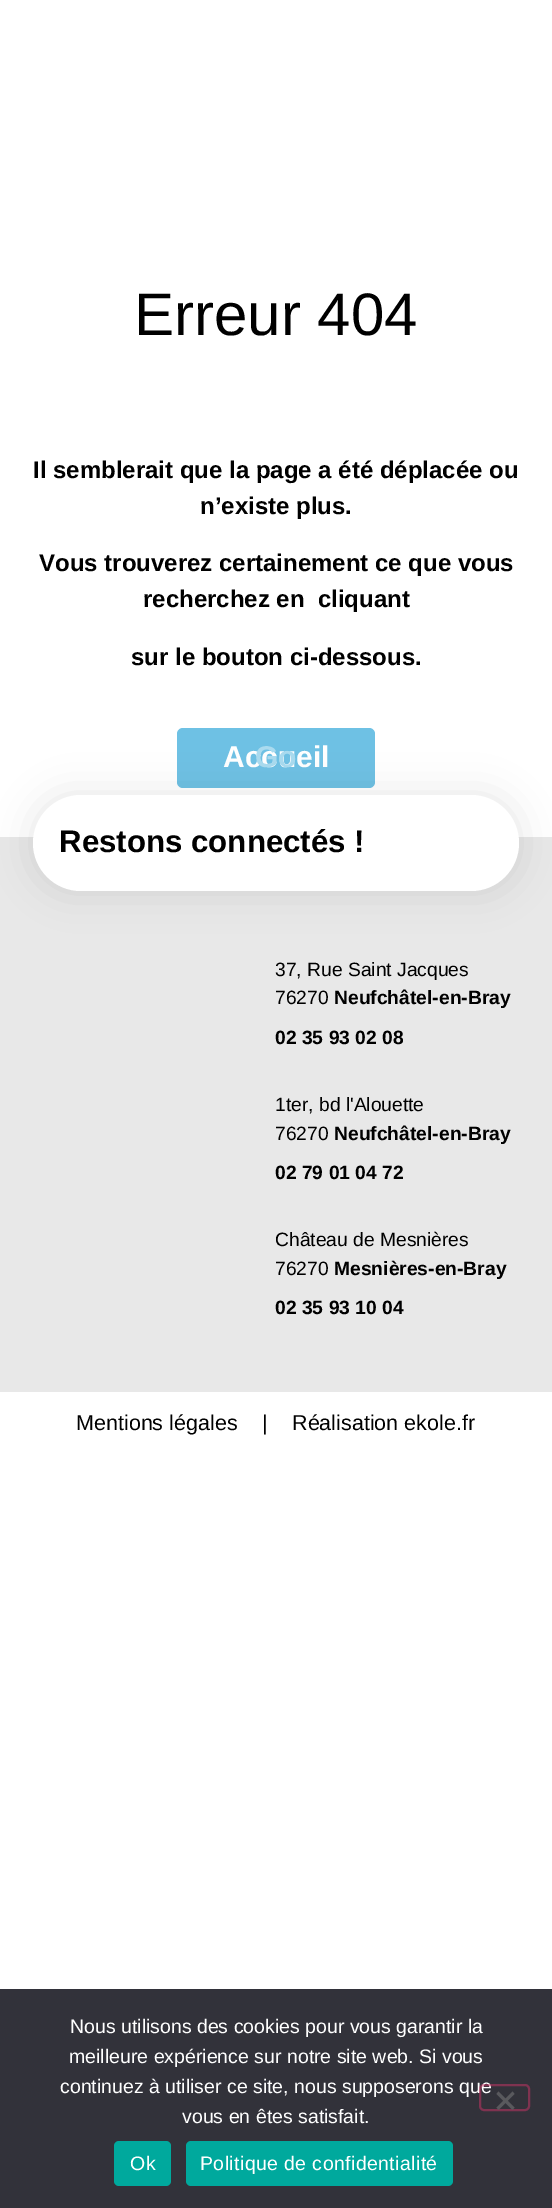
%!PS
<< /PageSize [552 2208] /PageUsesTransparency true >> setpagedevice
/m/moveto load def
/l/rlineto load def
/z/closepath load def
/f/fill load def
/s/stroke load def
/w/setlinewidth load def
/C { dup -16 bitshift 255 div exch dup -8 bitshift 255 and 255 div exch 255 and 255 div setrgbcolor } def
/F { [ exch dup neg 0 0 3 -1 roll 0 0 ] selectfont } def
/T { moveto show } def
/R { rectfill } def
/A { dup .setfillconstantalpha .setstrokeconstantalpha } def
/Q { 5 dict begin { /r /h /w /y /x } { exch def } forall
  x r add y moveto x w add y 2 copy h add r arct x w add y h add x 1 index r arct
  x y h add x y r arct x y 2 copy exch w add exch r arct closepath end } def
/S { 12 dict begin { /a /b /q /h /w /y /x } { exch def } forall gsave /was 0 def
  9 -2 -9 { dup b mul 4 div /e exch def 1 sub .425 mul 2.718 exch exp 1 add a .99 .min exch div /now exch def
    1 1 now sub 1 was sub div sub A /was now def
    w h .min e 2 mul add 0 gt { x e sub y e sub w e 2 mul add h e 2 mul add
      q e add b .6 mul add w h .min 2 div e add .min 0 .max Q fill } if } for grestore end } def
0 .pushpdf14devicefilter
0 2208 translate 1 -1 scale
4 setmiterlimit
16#FFFFFF C
0 0 552 2208 R
/LiberationSans-Regular 60 F
16#000000 C
(Erreur 404) 134 335 T
/LiberationSans-Bold 24 F
(Il semblerait que la page a été déplacée ou) 33 478 T
(n’existe plus.) 200 514 T
(Vous trouverez certainement ce que vous) 39 571 T
(recherchez en  cliquant) 143 607 T
(sur le bouton ci-dessous.) 131 665 T
16#6EC1E4 C
177 728 198 60 6 Q f
/LiberationSans-Bold 30 F
16#FFFFFF C
(Accueil) 223 767 T
16#AADBEF C
(Go) 255 767 T
16#E8E8E8 C
0 837 552 555 R
16#000000 C
33 795 486 96 48 19 .1 S
16#FFFFFF C
33 795 486 96 48 Q f
/LiberationSans-Bold 31.25 F
16#000000 C
(Restons connectés !) 59 852 T
/LiberationSans-Regular 19.25 F
(37, Rue Saint Jacques) 275 976 T
(76270) 275 1004 T
/LiberationSans-Bold 19.25 F
(Neufchâtel-en-Bray) 334 1004 T
(02 35 93 02 08) 275 1044 T
/LiberationSans-Regular 19.25 F
(1ter, bd l'Alouette) 275 1111 T
(76270) 275 1140 T
/LiberationSans-Bold 19.25 F
(Neufchâtel-en-Bray) 334 1140 T
(02 79 01 04 72) 275 1179 T
/LiberationSans-Regular 19.25 F
(Château de Mesnières) 275 1246 T
(76270) 275 1275 T
/LiberationSans-Bold 19.25 F
(Mesnières-en-Bray) 334 1275 T
(02 35 93 10 04) 275 1314 T
/LiberationSans-Regular 21.5 F
(Mentions légales) 76 1430 T
(|) 262 1430 T
(Réalisation ekole.fr) 292 1430 T
16#32323A C
0 1989 552 219 R
/LiberationSans-Regular 19.5 F
16#FFFFFF C
(Nous utilisons des cookies pour vous garantir la) 70 2033 T
(meilleure expérience sur notre site web. Si vous) 69 2063 T
(continuez à utiliser ce site, nous supposerons que) 60 2093 T
(vous en êtes satisfait.) 182 2123 T
0.5 A
16#CC3366 C
2 w
480 2085 49 25 4 Q s
1 A
16#59595D C
512.5 2091.5 m 2 2.5 l -16 16 l -2 -2.5 l z f
496.5 2094 m 2 -2.5 l 16 16 l -2 2.5 l z f
16#00A99D C
114 2141 57 45 5 Q f
16#FFFFFF C
130 2170 m .4 0 (Ok) ashow
16#00A99D C
186 2141 267 45 5 Q f
16#FFFFFF C
200 2170 m .4 0 (Politique de confidentialité) ashow
.poppdf14devicefilter showpage
